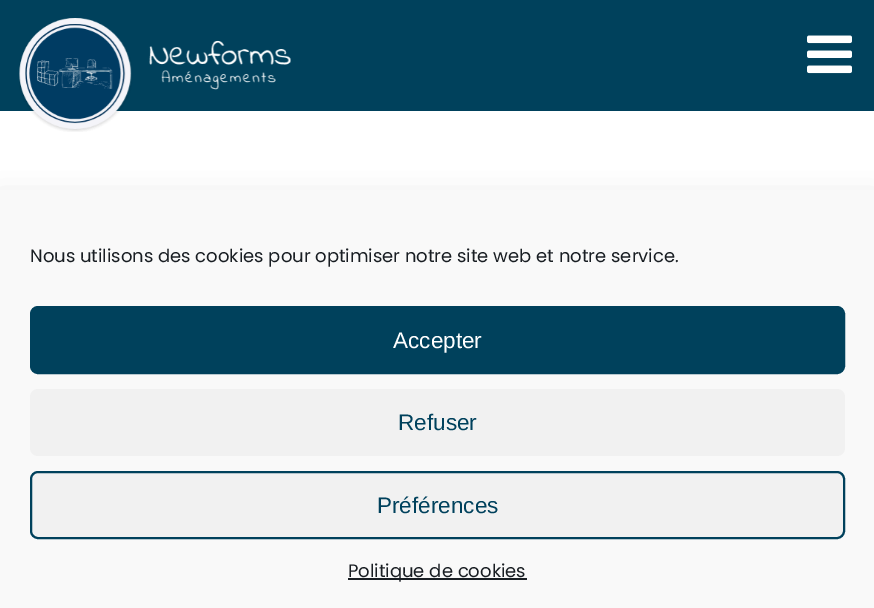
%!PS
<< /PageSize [874 608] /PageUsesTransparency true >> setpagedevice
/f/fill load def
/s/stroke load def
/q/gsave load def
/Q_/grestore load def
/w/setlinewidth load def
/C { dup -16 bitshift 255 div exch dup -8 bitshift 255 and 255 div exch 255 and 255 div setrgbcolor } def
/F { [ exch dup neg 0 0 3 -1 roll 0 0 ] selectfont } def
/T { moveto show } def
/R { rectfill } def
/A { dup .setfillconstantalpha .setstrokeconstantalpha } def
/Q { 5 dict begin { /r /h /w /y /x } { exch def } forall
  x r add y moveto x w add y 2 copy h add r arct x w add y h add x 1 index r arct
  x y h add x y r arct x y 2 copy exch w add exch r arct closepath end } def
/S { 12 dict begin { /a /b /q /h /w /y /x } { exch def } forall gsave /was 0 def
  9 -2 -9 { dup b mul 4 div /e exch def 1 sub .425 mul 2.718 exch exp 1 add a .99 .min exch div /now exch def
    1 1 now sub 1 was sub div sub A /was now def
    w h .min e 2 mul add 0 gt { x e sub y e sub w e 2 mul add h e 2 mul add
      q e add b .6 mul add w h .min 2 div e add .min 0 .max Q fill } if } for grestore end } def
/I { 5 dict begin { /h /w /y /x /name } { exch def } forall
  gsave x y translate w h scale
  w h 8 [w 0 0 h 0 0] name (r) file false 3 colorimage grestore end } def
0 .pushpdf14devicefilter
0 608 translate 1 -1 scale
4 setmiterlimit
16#FFFFFF C
0 0 874 608 R
16#00415C C
0 0 874 111 R
(1.rgb) 19 18 272 114 I
(2.rgb) 807 35 45 39 I
16#000000 C
0 204 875 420 0 15 .19 S
16#F9F9F9 C
0 190 874 418 R
/Poppins-Regular 18 F
16#191E23 C
(Nous utilisons des cookies pour optimiser notre site web et notre service.) 30 262 T
16#00415C C
31 307 813 66 7 Q q f Q_
2 w
s
/LiberationSans-Regular 22.5 F
16#FFFFFF C
(Accepter) 393 348 T
16#F1F1F1 C
30 389 815 67 8 Q f
16#00415C C
(Refuser) 398 430 T
16#F1F1F1 C
31 472 813 66 7 Q q f Q_
16#00415C C
s
(Préférences) 377 513 T
16#191E23 C
348 578 179 2 R
/Poppins-Regular 18 F
(Politique de cookies) 348 577 T
.poppdf14devicefilter showpage
